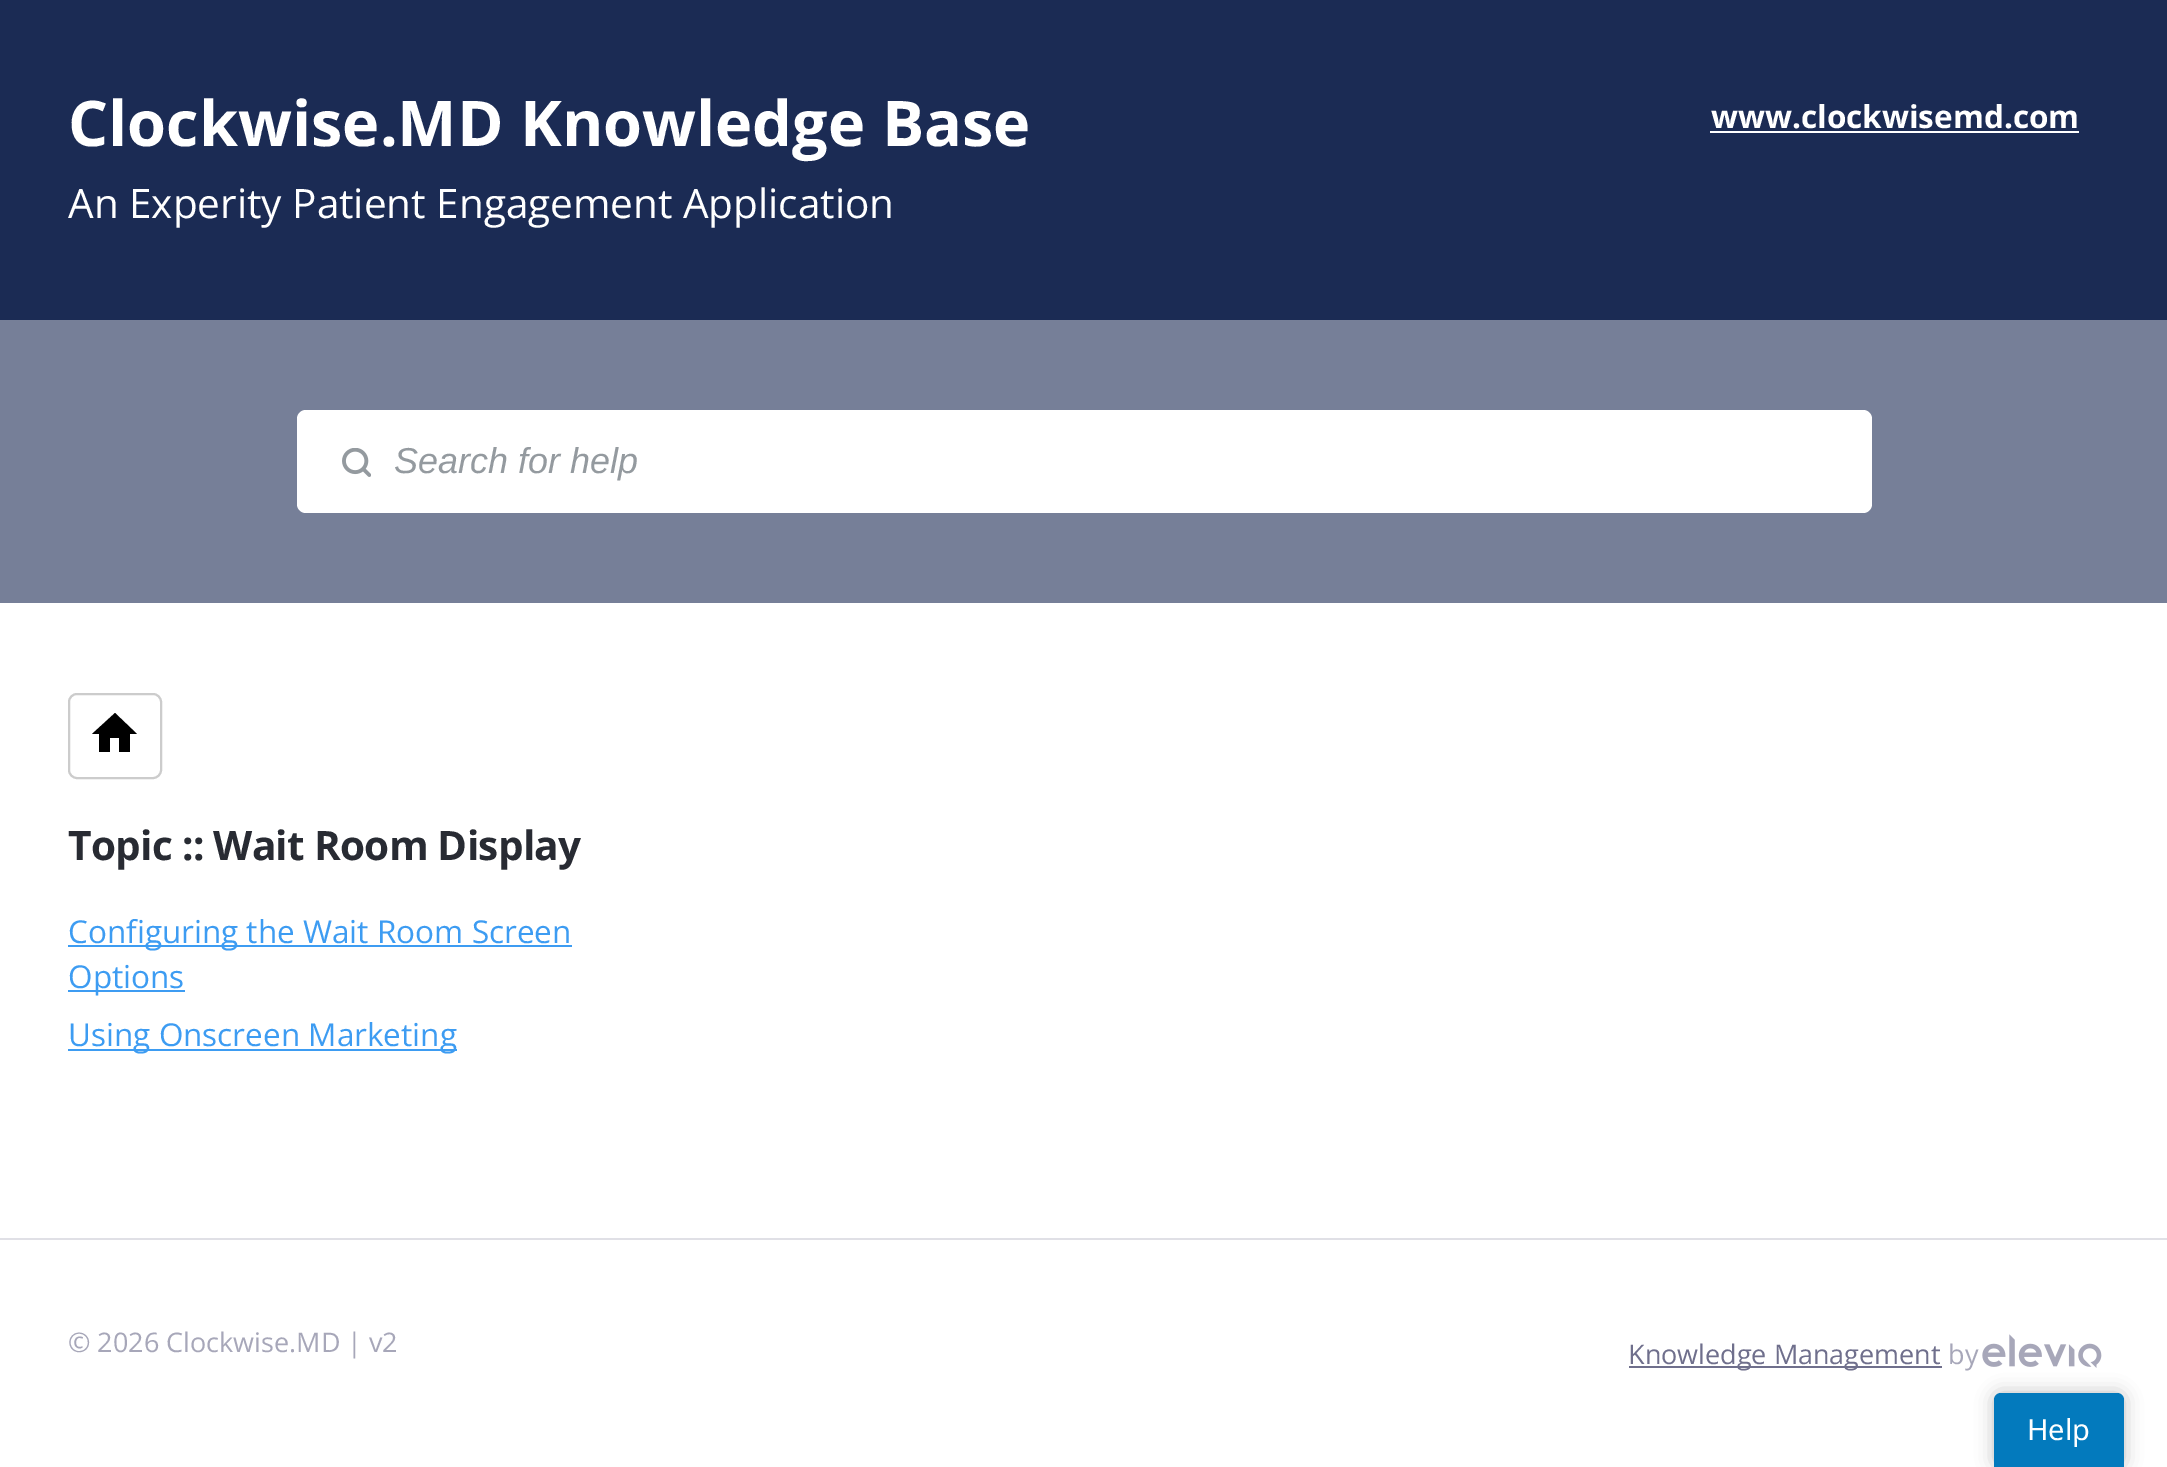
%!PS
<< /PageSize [2167 1467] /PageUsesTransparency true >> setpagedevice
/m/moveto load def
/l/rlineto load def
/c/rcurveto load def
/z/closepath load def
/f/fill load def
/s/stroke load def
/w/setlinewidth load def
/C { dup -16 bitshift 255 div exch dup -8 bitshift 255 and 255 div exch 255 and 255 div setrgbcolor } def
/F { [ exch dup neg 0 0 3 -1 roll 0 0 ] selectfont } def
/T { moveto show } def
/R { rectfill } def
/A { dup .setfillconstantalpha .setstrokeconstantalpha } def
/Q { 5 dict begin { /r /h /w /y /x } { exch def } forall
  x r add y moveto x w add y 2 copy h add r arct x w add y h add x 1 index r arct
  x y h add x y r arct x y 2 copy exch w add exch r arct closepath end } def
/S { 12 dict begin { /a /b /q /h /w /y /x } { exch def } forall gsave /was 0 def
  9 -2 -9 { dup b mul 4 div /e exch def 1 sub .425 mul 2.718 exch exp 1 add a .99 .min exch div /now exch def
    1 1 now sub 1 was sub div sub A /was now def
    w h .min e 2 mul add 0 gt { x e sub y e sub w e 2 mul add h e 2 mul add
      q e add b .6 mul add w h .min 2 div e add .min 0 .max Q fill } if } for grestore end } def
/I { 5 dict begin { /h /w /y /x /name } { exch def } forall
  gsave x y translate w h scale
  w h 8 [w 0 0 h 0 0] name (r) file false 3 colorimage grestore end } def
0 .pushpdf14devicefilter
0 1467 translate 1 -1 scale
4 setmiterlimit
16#FFFFFF C
0 0 2167 1467 R
16#1B2B54 C
0 0 2167 320 R
/OpenSans-Bold 63 F
16#FFFFFF C
(Clockwise.MD Knowledge Base) 68 146 T
/OpenSans-Bold 31.5 F
(www.clockwisemd.com) 1711 128 T
1710 131 369 2 R
/OpenSans-Regular 40.5 F
(An Experity Patient Engagement Application) 68 218 T
16#767F98 C
0 320 2167 283 R
16#FFFFFF C
306 410 m 65 0 l 0 103 l -65 0 l -5 0 -9 -4 -9 -9 c 0 -85 l 0 -5 4 -9 9 -9 c z f
(1.rgb) 342 448 29 29 I
371 410 m 1492 0 l 5 0 9 4 9 9 c 0 85 l 0 5 -4 9 -9 9 c -1492 0 l z f
/LiberationSans-Italic 36 F
16#949A9F C
(Search for help) 394 473 T
16#CCCCCC C
2 w
69 694 92 84 8 Q s
16#000000 C
110 752 m 0 -14 l 9 0 l 0 14 l 11 0 l 0 -18 l 7 0 l -22 -21 l -23 21 l 7 0 l 0 18 l z f
/OpenSans-Bold 40.5 F
16#282B33 C
68 860 m -.7 0 (Topic :: Wait Room Display) ashow
16#3D9CF2 C
68 945 504 2 R
/OpenSans-Regular 31.5 F
(Configuring the Wait Room Screen) 68 943 T
68 990 117 2 R
(Options) 68 988 T
68 1049 389 2 R
(Using Onscreen Marketing) 68 1046 T
16#E0E0E6 C
0 1238 2167 2 R
/OpenSans-Regular 27 F
16#A7A7B9 C
(© 2026 Clockwise.MD | v2) 68 1352 T
16#6F6F8C C
1629 1366 313 2 R
(Knowledge Management) 1628 1364 T
16#A7A7B9 C
(by) 1948 1364 T
(2.rgb) 1982 1334 120 34 I
16#000000 C
1994 1393 130 74 7 9 .25 S
16#037ABD C
2001 1393 m 116 0 l 4 0 7 3 7 7 c 0 67 l -130 0 l 0 -67 l 0 -4 3 -7 7 -7 c z f
/NotoSans-Regular 29 F
16#FFFFFF C
(Help) 2027 1440 T
.poppdf14devicefilter showpage
